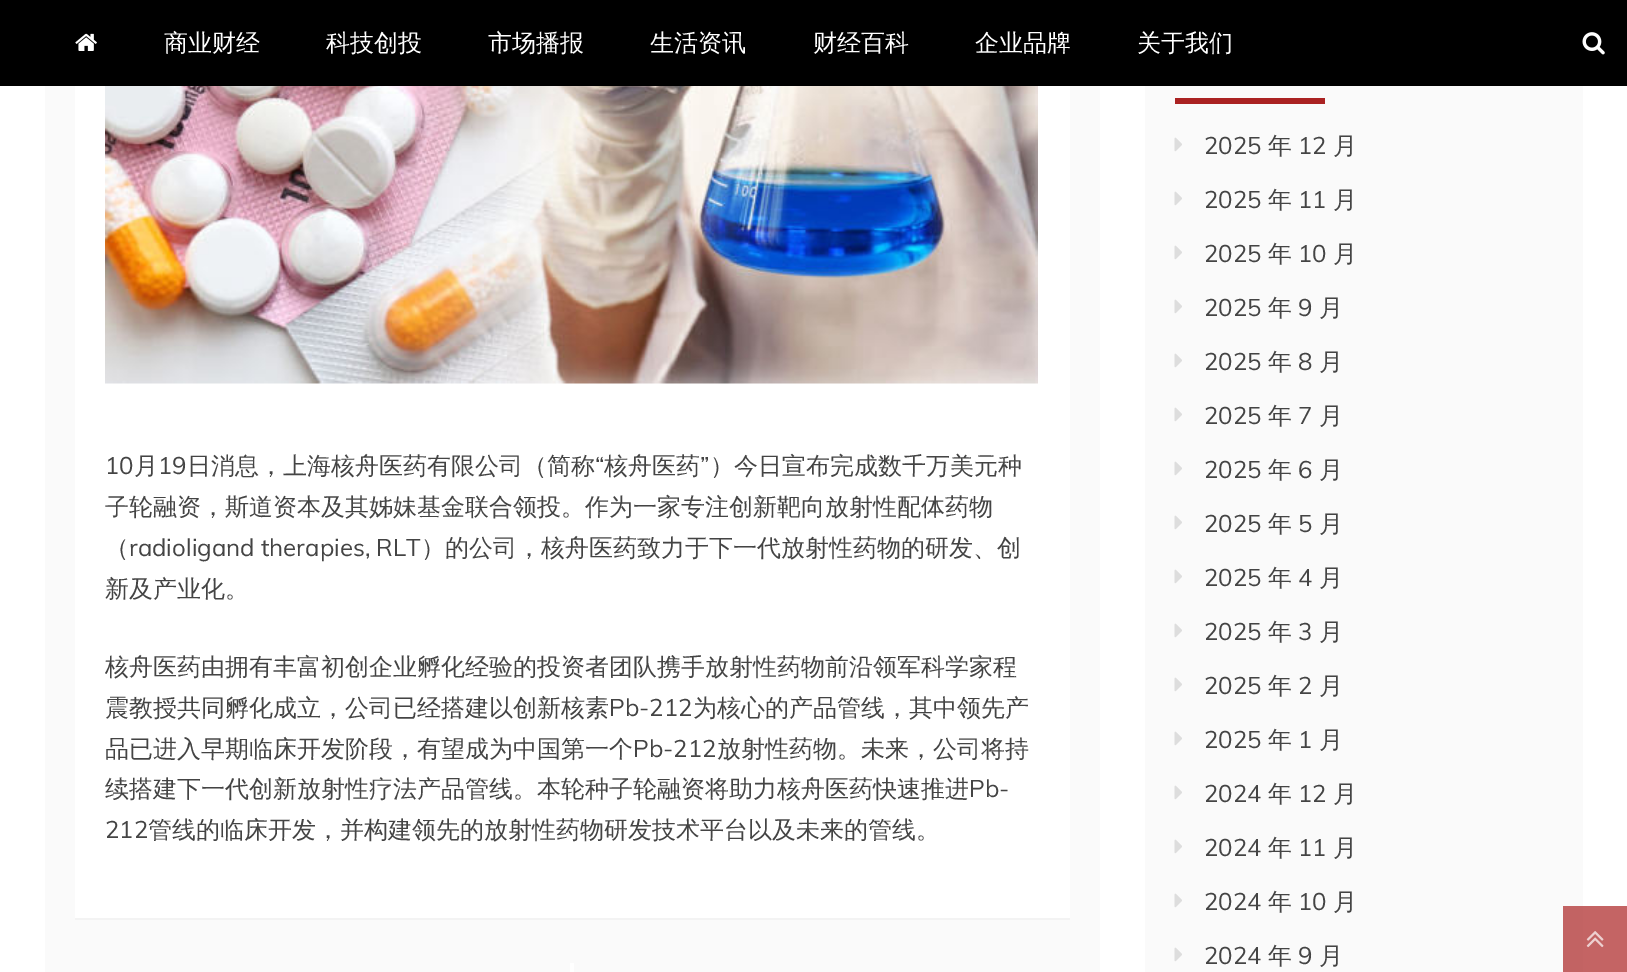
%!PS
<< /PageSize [1627 972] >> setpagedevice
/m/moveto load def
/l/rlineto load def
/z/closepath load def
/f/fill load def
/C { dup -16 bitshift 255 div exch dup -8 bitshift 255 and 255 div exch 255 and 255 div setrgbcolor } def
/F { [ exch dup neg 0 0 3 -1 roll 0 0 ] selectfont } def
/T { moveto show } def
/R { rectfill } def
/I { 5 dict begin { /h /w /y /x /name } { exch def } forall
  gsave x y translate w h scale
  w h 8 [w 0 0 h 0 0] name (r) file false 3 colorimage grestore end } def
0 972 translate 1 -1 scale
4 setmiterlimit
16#FFFFFF C
0 0 1627 972 R
16#C46464 C
1583 906 44 66 R
16#000000 C
0 0 1627 86 R
(1.rgb) 75 33 22 18 I
/WenQuanYiZenHei-Medium 24 F
16#FFFFFF C
(商业财经) 164 51 T
(科技创投) 326 51 T
(市场播报) 488 51 T
(生活资讯) 650 51 T
(财经百科) 813 51 T
(企业品牌) 975 51 T
(关于我们) 1137 51 T
(2.rgb) 1582 32 23 23 I
16#FAFAFA C
45 86 1055 886 R
16#F3F3F3 C
75 918 m 0 2 l 995 0 l 0 -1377 l 0 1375 l z f
16#FFFFFF C
75 86 995 832 R
(3.rgb) 105 86 933 298 I
/Muli-Regular 24 F
16#444444 C
(10) 105 474 T
/WenQuanYiZenHei-Medium 24 F
(月) 134 474 T
/Muli-Regular 24 F
(19) 158 474 T
/WenQuanYiZenHei-Medium 24 F
(日消息，上海核舟医药有限公司（简称) 187 474 T
/Muli-Regular 24 F
(“) 595 474 T
/WenQuanYiZenHei-Medium 24 F
(核舟医药) 604 474 T
/Muli-Regular 24 F
(”) 700 474 T
/WenQuanYiZenHei-Medium 24 F
(）今日宣布完成数千万美元种) 710 474 T
(子轮融资，斯道资本及其姊妹基金联合领投。作为一家专注创新靶向放射性配体药物) 105 515 T
(（) 105 556 T
/Muli-Regular 24 F
(radioligand therapies, RLT) 129 556 T
/WenQuanYiZenHei-Medium 24 F
(）的公司，核舟医药致力于下一代放射性药物的研发、创) 421 556 T
(新及产业化。) 105 597 T
(核舟医药由拥有丰富初创企业孵化经验的投资者团队携手放射性药物前沿领军科学家程) 105 675 T
(震教授共同孵化成立，公司已经搭建以创新核素) 105 716 T
/Muli-Regular 24 F
(Pb-212) 609 716 T
/WenQuanYiZenHei-Medium 24 F
(为核心的产品管线，其中领先产) 693 716 T
(品已进入早期临床开发阶段，有望成为中国第一个) 105 757 T
/Muli-Regular 24 F
(Pb-212) 633 757 T
/WenQuanYiZenHei-Medium 24 F
(放射性药物。未来，公司将持) 717 757 T
(续搭建下一代创新放射性疗法产品管线。本轮种子轮融资将助力核舟医药快速推进) 105 797 T
/Muli-Regular 24 F
(Pb-) 969 797 T
(212) 105 838 T
/WenQuanYiZenHei-Medium 24 F
(管线的临床开发，并构建领先的放射性药物研发技术平台以及未来的管线。) 148 838 T
16#FFFFFF C
570 963 4 9 R
16#FAFAFA C
1145 86 438 886 R
16#C26363 C
1563 906 20 66 R
16#AA2222 C
1175 98 150 6 R
(4.rgb) 1174 137 8 15 I
/Muli-Regular 24 F
16#444444 C
(2025) 1204 154 T
/WenQuanYiZenHei-Medium 24 F
(年) 1268 154 T
/Muli-Regular 24 F
(12) 1298 154 T
/WenQuanYiZenHei-Medium 24 F
(月) 1333 154 T
(4.rgb) 1174 191 8 15 I
/Muli-Regular 24 F
(2025) 1204 208 T
/WenQuanYiZenHei-Medium 24 F
(年) 1268 208 T
/Muli-Regular 24 F
(11) 1298 208 T
/WenQuanYiZenHei-Medium 24 F
(月) 1333 208 T
(4.rgb) 1174 245 8 15 I
/Muli-Regular 24 F
(2025) 1204 262 T
/WenQuanYiZenHei-Medium 24 F
(年) 1268 262 T
/Muli-Regular 24 F
(10) 1298 262 T
/WenQuanYiZenHei-Medium 24 F
(月) 1333 262 T
(4.rgb) 1174 299 8 15 I
/Muli-Regular 24 F
(2025) 1204 316 T
/WenQuanYiZenHei-Medium 24 F
(年) 1268 316 T
/Muli-Regular 24 F
(9) 1298 316 T
/WenQuanYiZenHei-Medium 24 F
(月) 1319 316 T
(4.rgb) 1174 353 8 15 I
/Muli-Regular 24 F
(2025) 1204 370 T
/WenQuanYiZenHei-Medium 24 F
(年) 1268 370 T
/Muli-Regular 24 F
(8) 1298 370 T
/WenQuanYiZenHei-Medium 24 F
(月) 1319 370 T
(4.rgb) 1174 407 8 15 I
/Muli-Regular 24 F
(2025) 1204 424 T
/WenQuanYiZenHei-Medium 24 F
(年) 1268 424 T
/Muli-Regular 24 F
(7) 1298 424 T
/WenQuanYiZenHei-Medium 24 F
(月) 1319 424 T
(4.rgb) 1174 461 8 15 I
/Muli-Regular 24 F
(2025) 1204 478 T
/WenQuanYiZenHei-Medium 24 F
(年) 1268 478 T
/Muli-Regular 24 F
(6) 1298 478 T
/WenQuanYiZenHei-Medium 24 F
(月) 1319 478 T
(4.rgb) 1174 515 8 15 I
/Muli-Regular 24 F
(2025) 1204 532 T
/WenQuanYiZenHei-Medium 24 F
(年) 1268 532 T
/Muli-Regular 24 F
(5) 1298 532 T
/WenQuanYiZenHei-Medium 24 F
(月) 1319 532 T
(4.rgb) 1174 569 8 15 I
/Muli-Regular 24 F
(2025) 1204 586 T
/WenQuanYiZenHei-Medium 24 F
(年) 1268 586 T
/Muli-Regular 24 F
(4) 1298 586 T
/WenQuanYiZenHei-Medium 24 F
(月) 1319 586 T
(4.rgb) 1174 623 8 15 I
/Muli-Regular 24 F
(2025) 1204 640 T
/WenQuanYiZenHei-Medium 24 F
(年) 1268 640 T
/Muli-Regular 24 F
(3) 1298 640 T
/WenQuanYiZenHei-Medium 24 F
(月) 1319 640 T
(4.rgb) 1174 677 8 15 I
/Muli-Regular 24 F
(2025) 1204 694 T
/WenQuanYiZenHei-Medium 24 F
(年) 1268 694 T
/Muli-Regular 24 F
(2) 1298 694 T
/WenQuanYiZenHei-Medium 24 F
(月) 1319 694 T
(4.rgb) 1174 731 8 15 I
/Muli-Regular 24 F
(2025) 1204 748 T
/WenQuanYiZenHei-Medium 24 F
(年) 1268 748 T
/Muli-Regular 24 F
(1) 1298 748 T
/WenQuanYiZenHei-Medium 24 F
(月) 1319 748 T
(4.rgb) 1174 785 8 15 I
/Muli-Regular 24 F
(2024) 1204 802 T
/WenQuanYiZenHei-Medium 24 F
(年) 1268 802 T
/Muli-Regular 24 F
(12) 1298 802 T
/WenQuanYiZenHei-Medium 24 F
(月) 1333 802 T
(4.rgb) 1174 839 8 15 I
/Muli-Regular 24 F
(2024) 1204 856 T
/WenQuanYiZenHei-Medium 24 F
(年) 1268 856 T
/Muli-Regular 24 F
(11) 1298 856 T
/WenQuanYiZenHei-Medium 24 F
(月) 1333 856 T
(4.rgb) 1174 893 8 15 I
/Muli-Regular 24 F
(2024) 1204 910 T
/WenQuanYiZenHei-Medium 24 F
(年) 1268 910 T
/Muli-Regular 24 F
(10) 1298 910 T
/WenQuanYiZenHei-Medium 24 F
(月) 1333 910 T
(4.rgb) 1174 947 8 15 I
/Muli-Regular 24 F
(2024) 1204 964 T
/WenQuanYiZenHei-Medium 24 F
(年) 1268 964 T
/Muli-Regular 24 F
(9) 1298 964 T
/WenQuanYiZenHei-Medium 24 F
(月) 1319 964 T
(5.rgb) 1586 931 18 17 I
showpage
